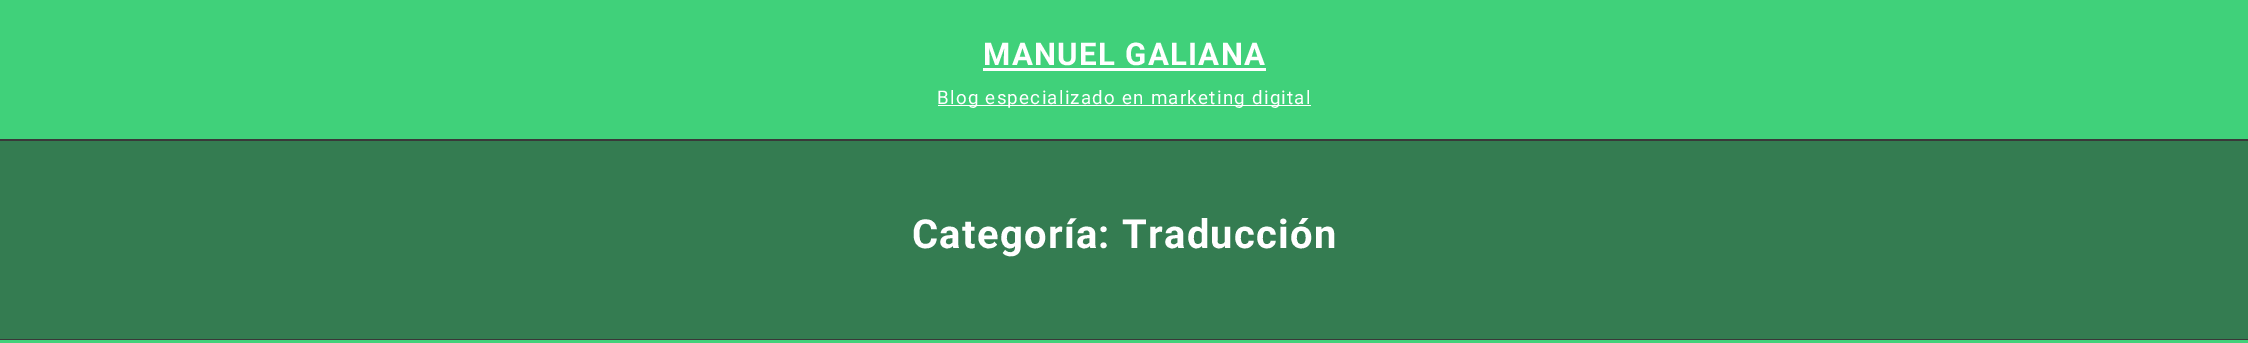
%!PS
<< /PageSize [2248 343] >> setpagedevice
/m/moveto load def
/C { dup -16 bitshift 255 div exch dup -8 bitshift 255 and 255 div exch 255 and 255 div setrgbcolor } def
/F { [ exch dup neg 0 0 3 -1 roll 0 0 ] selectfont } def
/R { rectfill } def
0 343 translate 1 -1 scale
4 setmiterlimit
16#40D17A C
0 0 2248 343 R
16#393939 C
0 139 2248 2 R
/Roboto-Bold 31.25 F
16#FFFFFF C
983 65 m 1.25 0 (MANUEL GALIANA) ashow
983 68 283 3 R
938 105 373 1 R
/Roboto-Regular 18.75 F
937 104 m 1.25 0 (Blog especializado en marketing digital) ashow
16#393939 C
0 339 2248 1 R
16#347C51 C
0 141 2248 198 R
/Roboto-Bold 40 F
16#FFFFFF C
912 248 m 1.25 0 (Categoría: Traducción) ashow
showpage
